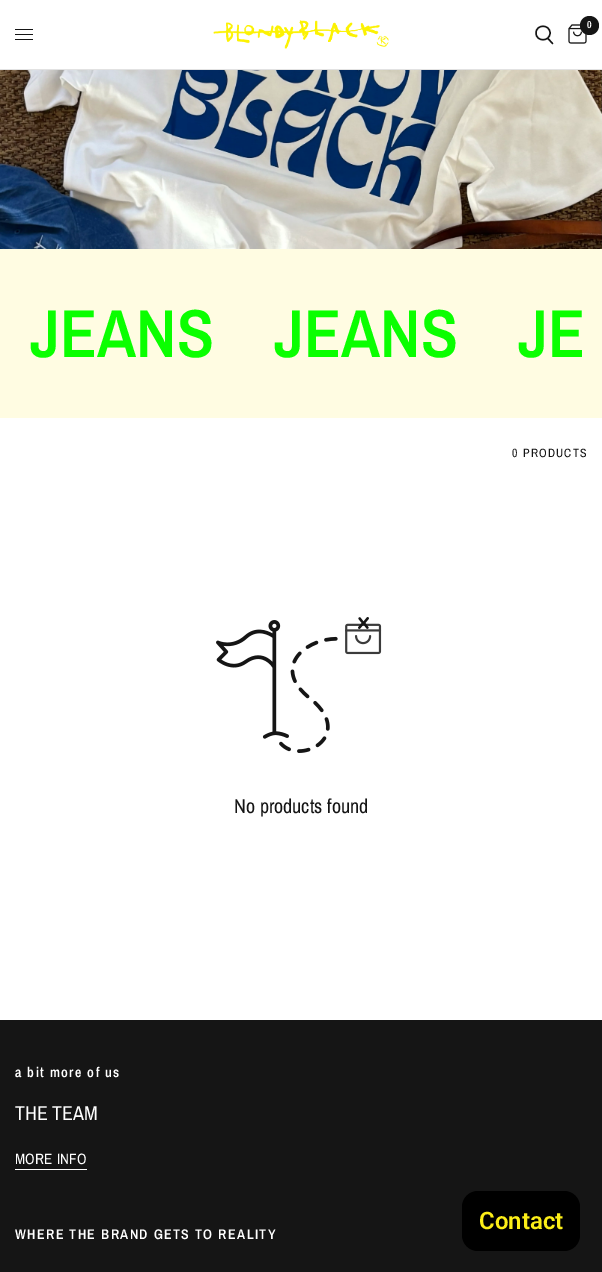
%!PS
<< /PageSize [602 1272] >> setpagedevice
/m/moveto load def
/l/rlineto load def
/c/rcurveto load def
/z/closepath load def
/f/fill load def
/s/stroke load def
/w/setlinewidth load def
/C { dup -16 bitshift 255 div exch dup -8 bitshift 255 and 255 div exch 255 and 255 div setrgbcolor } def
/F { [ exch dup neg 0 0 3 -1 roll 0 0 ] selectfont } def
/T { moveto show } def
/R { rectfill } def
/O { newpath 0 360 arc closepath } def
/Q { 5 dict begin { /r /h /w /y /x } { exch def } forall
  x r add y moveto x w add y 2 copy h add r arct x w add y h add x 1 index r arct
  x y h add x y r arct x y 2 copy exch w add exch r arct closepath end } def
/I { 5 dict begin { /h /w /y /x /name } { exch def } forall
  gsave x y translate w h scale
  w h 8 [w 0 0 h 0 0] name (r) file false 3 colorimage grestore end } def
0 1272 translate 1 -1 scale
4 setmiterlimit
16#FFFFFF C
0 0 602 1272 R
16#E2E2E2 C
0 69 602 1 R
(1.rgb) 213 20 176 29 I
16#151515 C
1.4 w
1 setlinecap
1 setlinejoin
548 38.5 m 4.5 5 l 550 33 m 0 9 -14 9 -14 0 c 0 -9 14 -9 14 0 c z s
(2.rgb) 568 24 19 20 I
589.5 25.5 9.5 O f
/ArchivoNarrow-SemiBold 10 F
16#FFFFFF C
(0) 587 28 T
16#151515 C
15 29 18 1 .5 Q f
15 34 18 1 .5 Q f
15 39 18 1 .5 Q f
(3.rgb) 0 70 602 179 I
16#FFFCE2 C
0 249 602 169 R
/ArchivoNarrow-SemiBold 68 F
16#0AFF00 C
(JEANS) 30 357 T
(JEANS) 274 357 T
(JE) 518 357 T
/ArchivoNarrow-Regular 12 F
16#151515 C
512 457 m 1.25 0 (0 PRODUCTS) ashow
(4.rgb) 216 617 166 136 I
/ArchivoNarrow-Regular 20 F
(No products found) 234 813 T
0 1020 602 252 R
/ArchivoNarrow-SemiBold 14 F
16#FFFFFF C
15 1077 m 1.4 0 (a bit more of us) ashow
/ArchivoNarrow-Regular 20 F
(THE TEAM) 15 1120 T
/ArchivoNarrow-Regular 15 F
15 1164 m .25 0 (MORE INFO) ashow
15 1169 72 1 R
/ArchivoNarrow-SemiBold 14 F
15 1239 m 1.4 0 (WHERE THE BRAND GETS TO REALITY) ashow
16#000000 C
462 1191 118 60 16 Q f
/Roboto-SemiBold 24 F
16#FCEE18 C
(Contact) 479 1229 T
showpage
